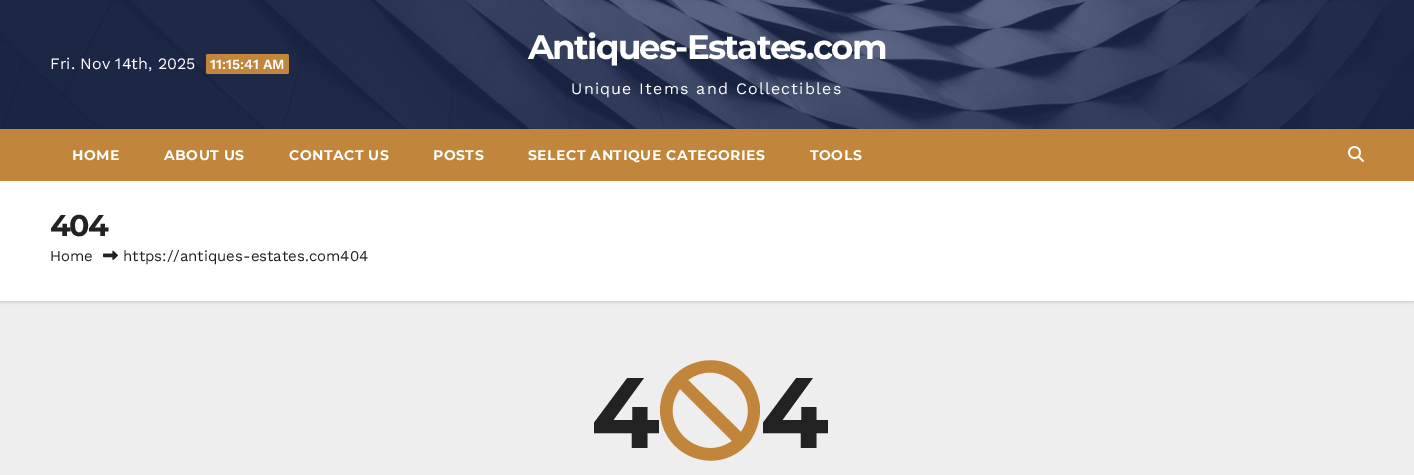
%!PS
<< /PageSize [1414 475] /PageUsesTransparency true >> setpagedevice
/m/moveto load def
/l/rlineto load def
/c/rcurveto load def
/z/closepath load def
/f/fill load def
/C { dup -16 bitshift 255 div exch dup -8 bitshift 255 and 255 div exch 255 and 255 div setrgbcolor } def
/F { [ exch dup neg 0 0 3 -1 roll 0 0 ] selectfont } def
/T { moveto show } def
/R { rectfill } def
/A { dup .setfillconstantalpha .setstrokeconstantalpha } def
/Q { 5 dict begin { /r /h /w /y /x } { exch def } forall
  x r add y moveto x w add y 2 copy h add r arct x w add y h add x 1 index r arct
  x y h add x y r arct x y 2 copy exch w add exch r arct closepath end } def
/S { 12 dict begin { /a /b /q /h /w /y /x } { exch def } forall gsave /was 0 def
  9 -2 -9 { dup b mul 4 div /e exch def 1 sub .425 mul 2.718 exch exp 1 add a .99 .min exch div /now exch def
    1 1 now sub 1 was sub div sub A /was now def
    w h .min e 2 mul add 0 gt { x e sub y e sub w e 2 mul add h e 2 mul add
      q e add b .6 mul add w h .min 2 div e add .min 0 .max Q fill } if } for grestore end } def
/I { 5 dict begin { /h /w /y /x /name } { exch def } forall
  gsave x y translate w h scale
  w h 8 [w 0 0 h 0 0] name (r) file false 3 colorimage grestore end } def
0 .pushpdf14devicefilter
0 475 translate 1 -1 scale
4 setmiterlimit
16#EEEEEE C
0 0 1414 475 R
(1.rgb) 0 0 1414 129 I
/WorkSans-Regular 16 F
16#FFFFFF C
(Fri. Nov 14th, 2025) 50 69 T
16#C1853B C
206 54 83 20 2 Q f
/WorkSans-SemiBold 14 F
16#FFFFFF C
(11:15:41 AM) 210 69 T
/Montserrat-Bold 34 F
528 59 m -1.7 0 (Antiques-Estates.com) ashow
/WorkSans-Regular 16 F
571 94 m 1.2 0 (Unique Items and Collectibles) ashow
16#000000 C
0 182 1414 120 0 1.5 .15 S
16#C1853B C
0 129 1414 52 R
/Montserrat-Bold 14 F
16#FFFFFF C
72 160 m .5 0 (HOME) ashow
164 160 m .5 0 (ABOUT US) ashow
289 160 m .5 0 (CONTACT US) ashow
433 160 m .5 0 (POSTS) ashow
528 160 m .5 0 (SELECT ANTIQUE CATEGORIES) ashow
810 160 m .5 0 (TOOLS) ashow
(2.rgb) 1348 146 16 16 I
0 181 1414 120 R
/Montserrat-Bold 30 F
16#222222 C
50 236 m -1.5 0 (404) ashow
/WorkSans-Regular 15 F
(Home) 50 261 T
(3.rgb) 103 250 15 10 I
(https://antiques-estates.com404) 123 261 T
/Montserrat-Bold 100 F
591 448 m -5 0 (4) ashow
16#C1853B C
732 441 m -52 -52 l -25 34 18 76 52 52 c z 741 432 m 24 -34 -19 -77 -53 -52 c z 660 410 m 1 -47 60 -68 90 -30 c 6 9 10 20 10 30 c 0 11 -4 22 -10 31 c -30 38 -89 17 -90 -31 c z f
16#222222 C
760 448 m -5 0 (4) ashow
.poppdf14devicefilter showpage
